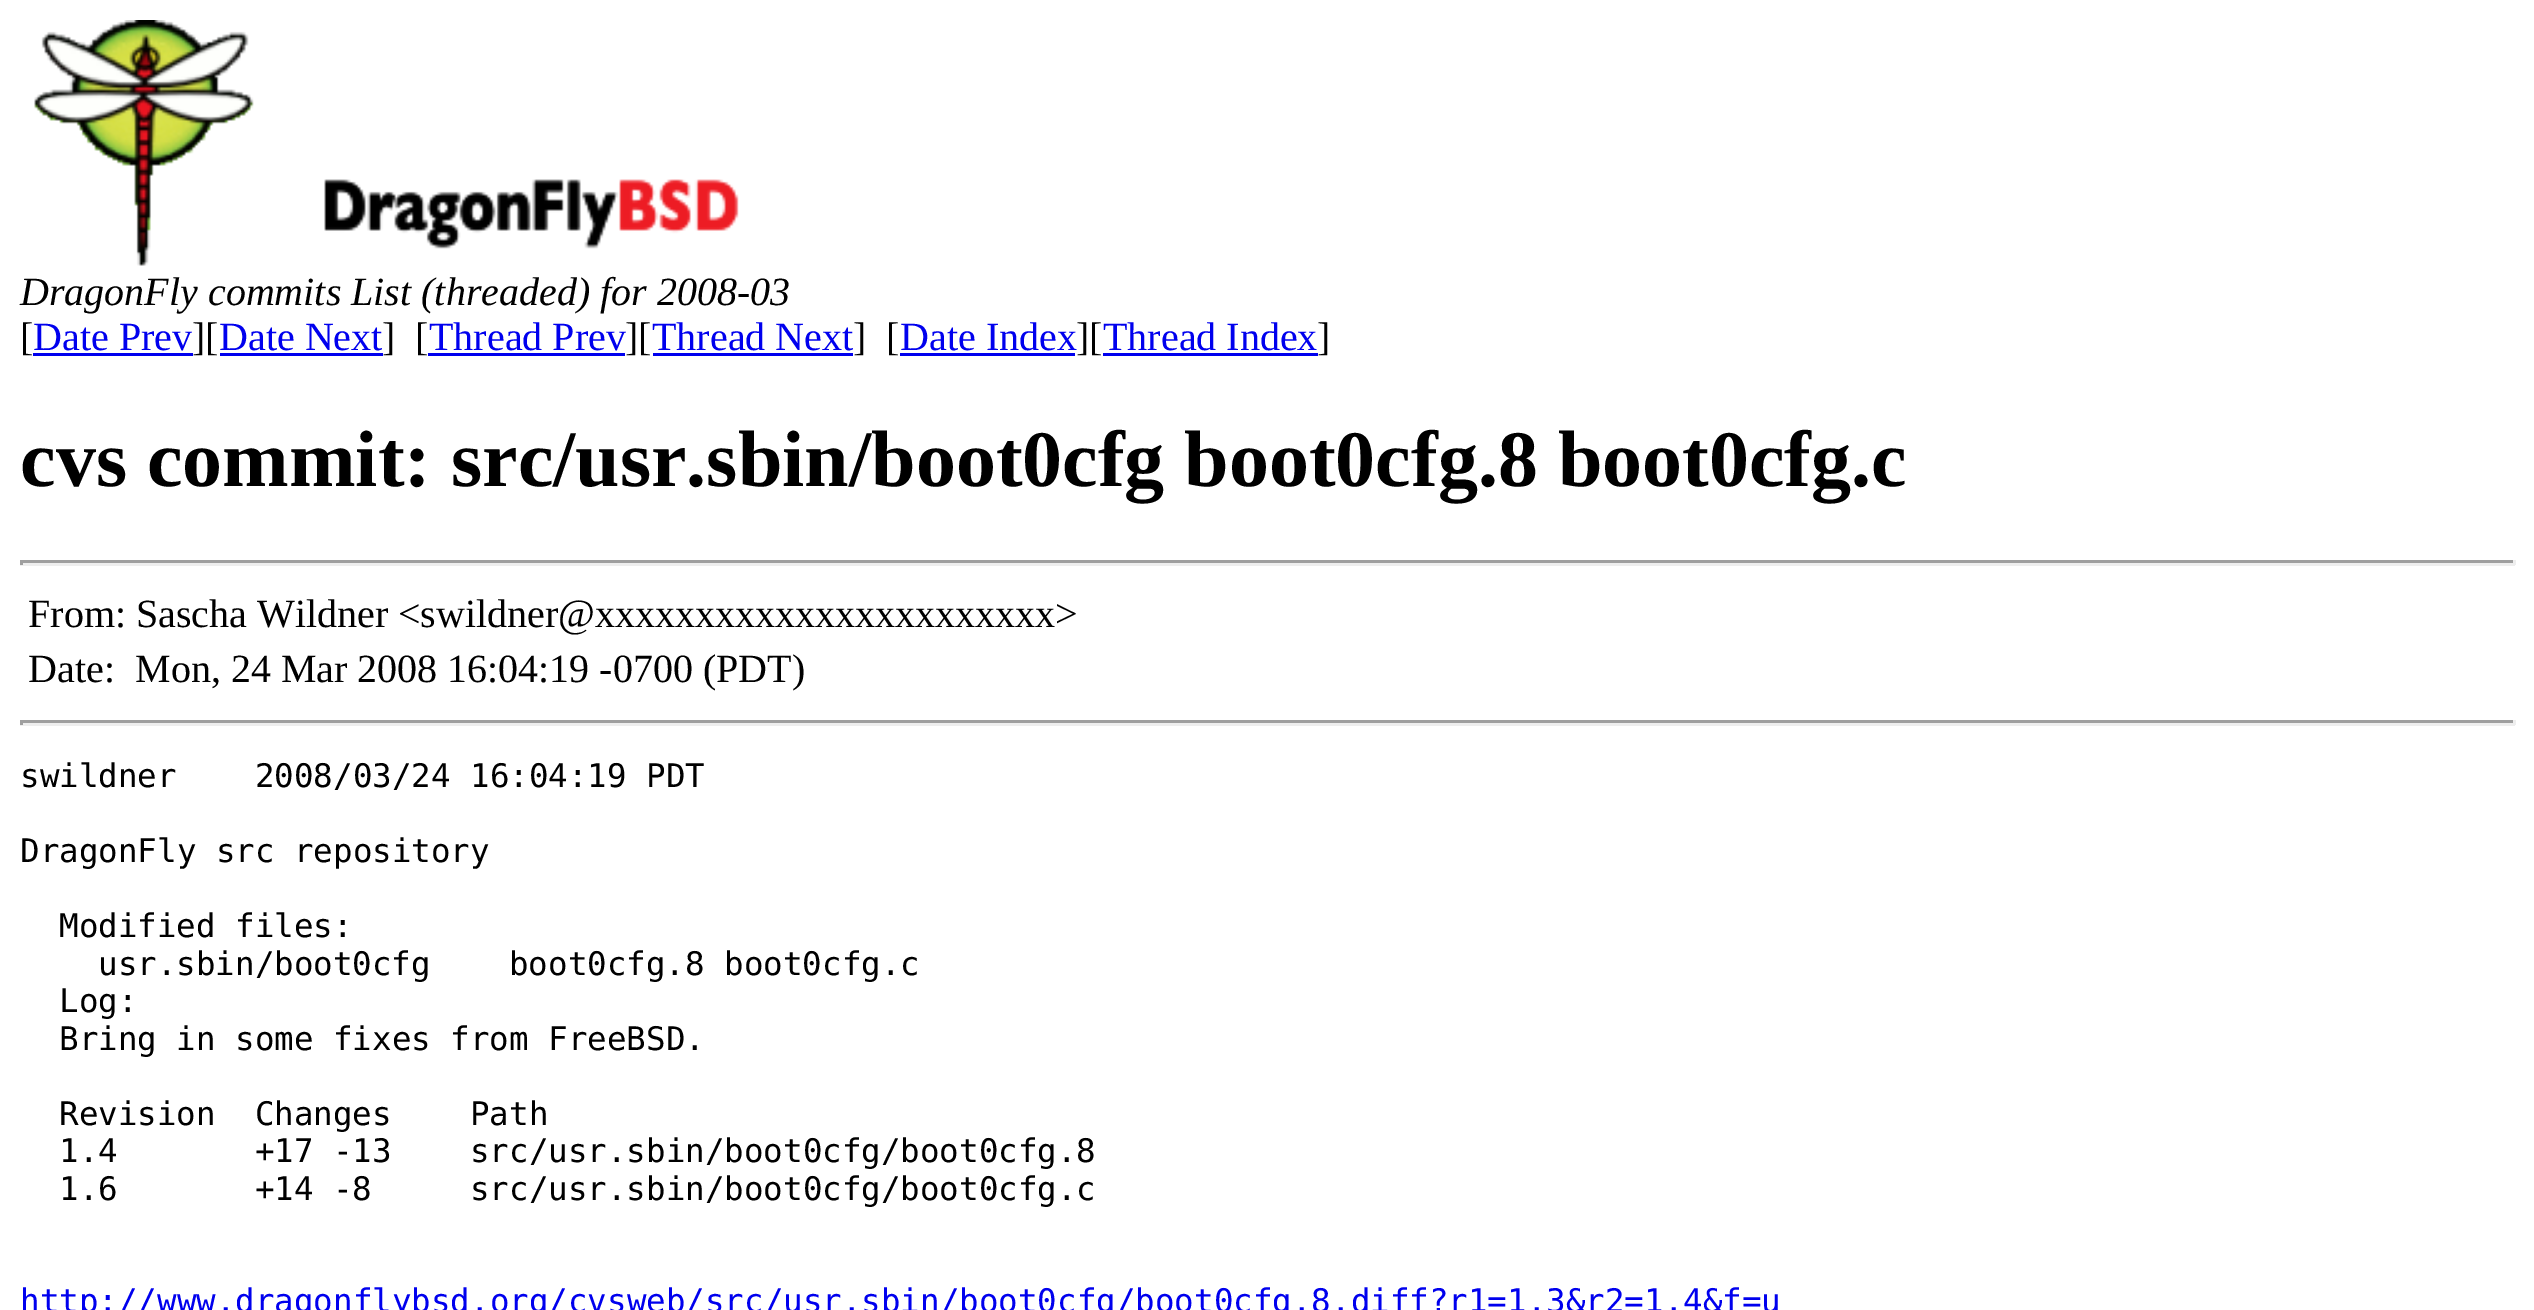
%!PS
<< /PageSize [2534 1310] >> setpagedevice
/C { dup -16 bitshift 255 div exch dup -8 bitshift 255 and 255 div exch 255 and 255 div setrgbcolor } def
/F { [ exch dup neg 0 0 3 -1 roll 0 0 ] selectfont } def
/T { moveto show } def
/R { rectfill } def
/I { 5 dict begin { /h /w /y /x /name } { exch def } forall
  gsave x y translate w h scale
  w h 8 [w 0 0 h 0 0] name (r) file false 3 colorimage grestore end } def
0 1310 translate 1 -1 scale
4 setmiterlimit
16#FFFFFF C
0 0 2534 1310 R
(1.rgb) 34 20 705 246 I
/LiberationSerif-Italic 40 F
16#000000 C
(DragonFly commits List \(threaded\) for 2008-03) 20 305 T
/LiberationSerif-Regular 40 F
([) 20 350 T
16#0000EE C
(Date Prev) 33 350 T
33 353 160 3 R
16#000000 C
(][) 192 350 T
16#0000EE C
(Date Next) 219 350 T
220 353 163 3 R
16#000000 C
(]  [) 382 350 T
16#0000EE C
(Thread Prev) 429 350 T
428 353 197 3 R
16#000000 C
(][) 625 350 T
16#0000EE C
(Thread Next) 652 350 T
653 353 200 3 R
16#000000 C
(]  [) 853 350 T
16#0000EE C
(Date Index) 900 350 T
900 353 175 3 R
16#000000 C
(][) 1076 350 T
16#0000EE C
(Thread Index) 1103 350 T
1103 353 215 3 R
16#000000 C
(]) 1317 350 T
/LiberationSerif-Bold 80 F
(cvs commit: src/usr.sbin/boot0cfg boot0cfg.8 boot0cfg.c) 20 486 T
16#9F9F9F C
20 560 2495 3 R
16#EEEEEE C
2513 560 3 5 R
20 563 2495 3 R
16#9F9F9F C
20 560 3 5 R
/LiberationSerif-Regular 40 F
16#000000 C
(From: Sascha Wildner <swildner@xxxxxxxxxxxxxxxxxxxxxxx>) 28 627 T
(Date:) 28 682 T
(Mon, 24 Mar 2008 16:04:19 -0700 \(PDT\)) 135 682 T
16#9F9F9F C
20 720 2495 3 R
16#EEEEEE C
2513 720 3 5 R
20 723 2495 3 R
16#9F9F9F C
20 720 3 5 R
/DejaVuSansMono-Regular 32.5 F
16#000000 C
(swildner    2008/03/24 16:04:19 PDT) 20 787 T
(DragonFly src repository) 20 862 T
(Modified files:) 59 937 T
(usr.sbin/boot0cfg    boot0cfg.8 boot0cfg.c) 98 975 T
(Log:) 59 1012 T
(Bring in some fixes from FreeBSD.) 59 1050 T
(Revision  Changes    Path) 59 1125 T
(1.4       +17 -13    src/usr.sbin/boot0cfg/boot0cfg.8) 59 1162 T
(1.6       +14 -8     src/usr.sbin/boot0cfg/boot0cfg.c) 59 1200 T
16#0000EE C
(http://www.dragonflybsd.org/cvsweb/src/usr.sbin/boot0cfg/boot0cfg.8.diff?r1=1.3&r2=1.4&f=u) 20 1312 T
showpage
